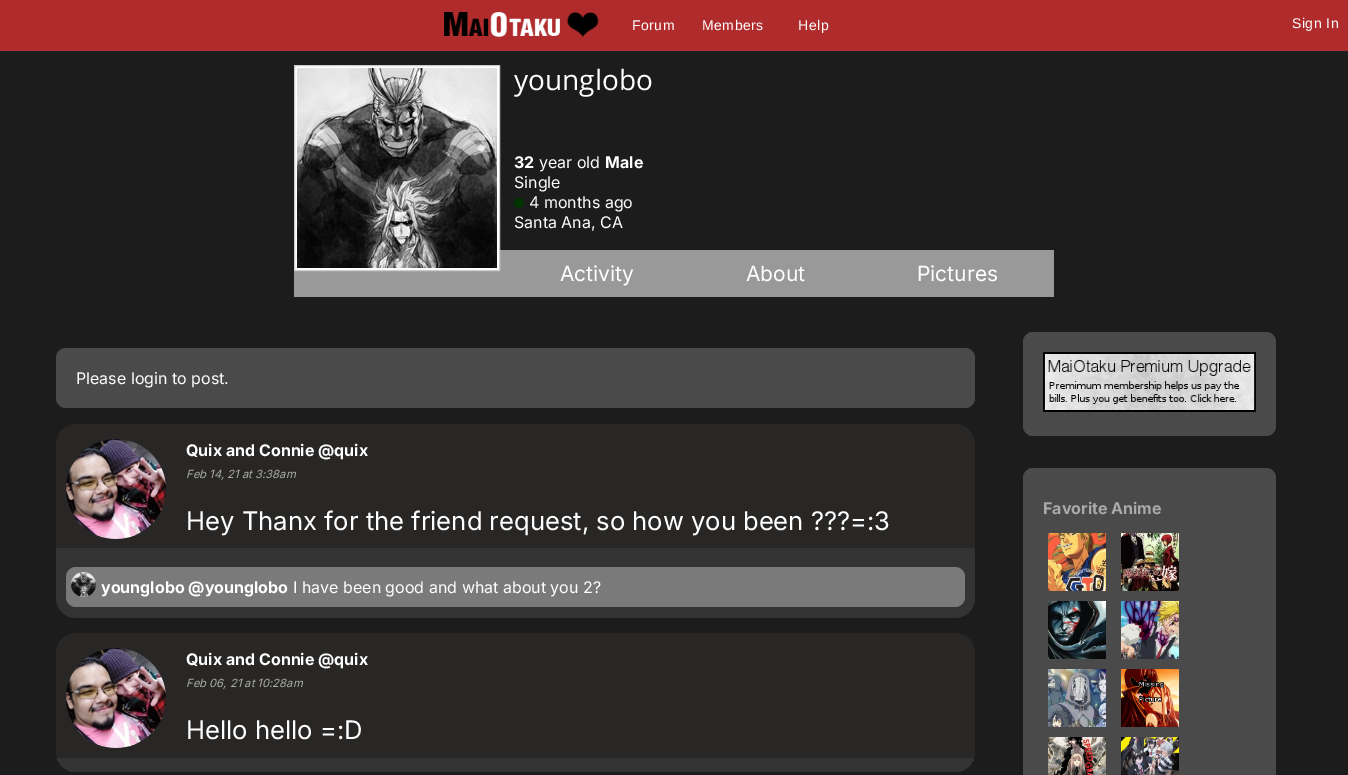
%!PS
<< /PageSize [1348 775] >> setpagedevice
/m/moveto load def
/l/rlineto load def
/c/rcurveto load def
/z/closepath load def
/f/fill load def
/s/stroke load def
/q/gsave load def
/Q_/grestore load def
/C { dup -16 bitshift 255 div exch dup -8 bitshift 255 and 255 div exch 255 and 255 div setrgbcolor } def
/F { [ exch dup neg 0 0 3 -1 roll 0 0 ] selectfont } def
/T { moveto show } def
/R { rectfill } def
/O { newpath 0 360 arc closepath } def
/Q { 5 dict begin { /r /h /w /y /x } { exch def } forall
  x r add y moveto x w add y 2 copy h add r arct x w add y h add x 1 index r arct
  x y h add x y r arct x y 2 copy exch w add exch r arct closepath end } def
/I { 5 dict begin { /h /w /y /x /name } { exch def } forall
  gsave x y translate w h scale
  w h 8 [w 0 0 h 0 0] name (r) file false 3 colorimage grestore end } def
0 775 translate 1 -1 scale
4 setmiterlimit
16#1D1C1C C
0 0 1348 775 R
16#B02B2C C
0 0 1348 51 R
16#222222 C
0 51 1348 1 R
(1.rgb) 444 12 155 25 I
/LiberationSans-Regular 14 F
16#FFFFFF C
632 30 m .5 0 (Forum) ashow
702 30 m .5 0 (Members) ashow
798 30 m .5 0 (Help) ashow
1292 28 m .5 0 (Sign In) ashow
16#999999 C
294 250 760 47 R
16#FFFFFF C
294.5 65.5 m 205 0 l 0 205 l -205 0 l z q f Q_
16#CCCCCC C
s
(2.rgb) 297 68 200 200 I
/OpenSans-Regular 28 F
16#FFFFFF C
(younglobo) 514 90 T
/Inter-Bold 16 F
(32) 514 168 T
/Inter-Regular 16 F
(year old) 539 168 T
/Inter-Bold 16 F
(Male) 605 168 T
/Inter-Regular 16 F
(Single) 514 188 T
16#003300 C
519 203 5 O f
16#FFFFFF C
(4 months ago) 529 208 T
(Santa Ana, CA) 514 228 T
/Inter-Regular 21 F
(Activity) 560 281 T
(About) 746 281 T
(Pictures) 917 281 T
16#4A4A4A C
56 348 919 60 10 Q f
/Inter-Regular 16 F
16#FFFFFF C
(Please login to post.) 76 384 T
16#282725 C
56 424 919 194 20 Q f
(3.rgb) 66 439 100 100 I
/Inter-Bold 16 F
16#FFFFFF C
(Quix and Connie @quix) 186 456 T
/Inter-Italic 11.25 F
16#AAAAAA C
(Feb 14, 21 at 3:38am) 186 478 T
/Inter-Regular 25.6 F
16#FFFFFF C
(Hey Thanx for the friend request, so how you been ???=:3) 186 530 T
16#333333 C
56 548 m 919 0 l 0 50 l 0 11 -9 20 -20 20 c -879 0 l -11 0 -20 -9 -20 -20 c z f
16#7A7A7A C
66 567 899 40 10 Q f
(4.rgb) 71 572 25 25 I
/Inter-Bold 16 F
16#FFFFFF C
(younglobo @younglobo) 101 593 T
/Inter-Regular 16 F
(I have been good and what about you 2?) 293 593 T
16#282725 C
56 633 919 139 20 Q f
(5.rgb) 66 648 100 100 I
/Inter-Bold 16 F
16#FFFFFF C
(Quix and Connie @quix) 186 665 T
/Inter-Italic 11.25 F
16#AAAAAA C
(Feb 06, 21 at 10:28am) 186 687 T
/Inter-Regular 25.6 F
16#FFFFFF C
(Hello hello =:D) 186 739 T
q
56 633 919 139 20 Q clip newpath
16#333333 C
57 758 917 14 R
Q_
16#4A4A4A C
1023 332 253 104 10 Q f
(6.rgb) 1043 352 213 60 I
1023 468 253 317 10 Q f
/Inter-Bold 16 F
16#AAAAAA C
(Favorite Anime) 1043 514 T
(7.rgb) 1048 533 58 58 I
(8.rgb) 1121 533 58 58 I
(9.rgb) 1048 601 58 58 I
(10.rgb) 1121 601 58 58 I
(11.rgb) 1048 669 58 58 I
(12.rgb) 1121 669 58 58 I
(13.rgb) 1048 737 58 38 I
(14.rgb) 1121 737 58 38 I
showpage
